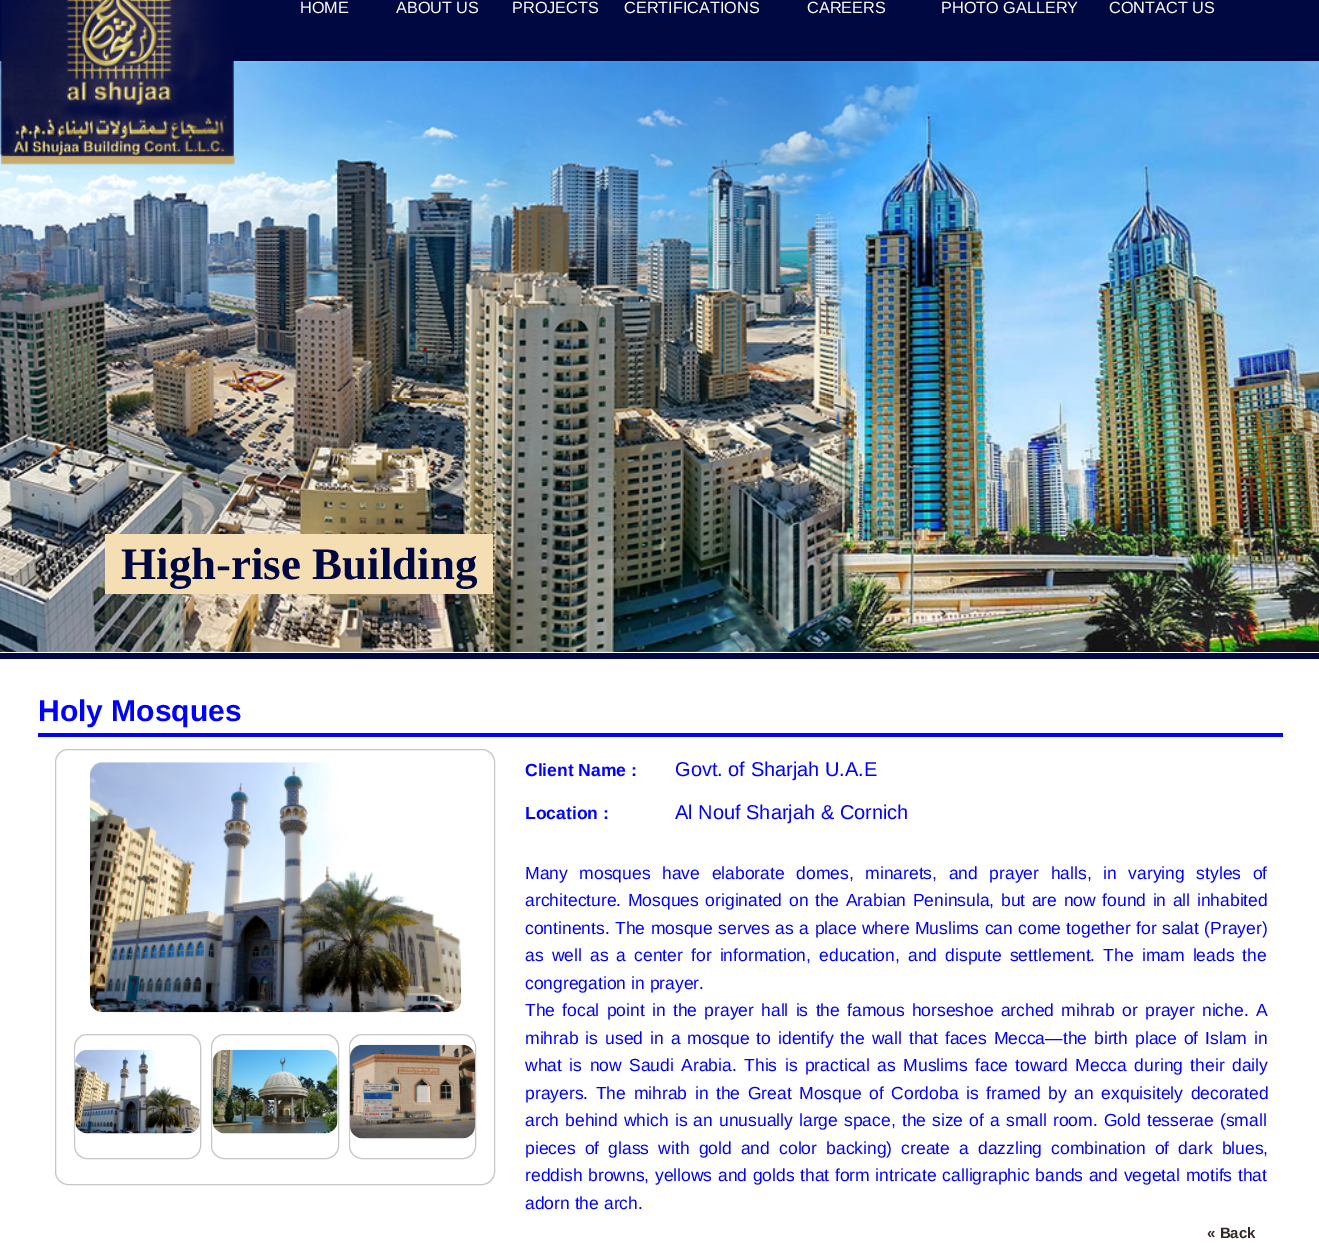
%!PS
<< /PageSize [1319 1247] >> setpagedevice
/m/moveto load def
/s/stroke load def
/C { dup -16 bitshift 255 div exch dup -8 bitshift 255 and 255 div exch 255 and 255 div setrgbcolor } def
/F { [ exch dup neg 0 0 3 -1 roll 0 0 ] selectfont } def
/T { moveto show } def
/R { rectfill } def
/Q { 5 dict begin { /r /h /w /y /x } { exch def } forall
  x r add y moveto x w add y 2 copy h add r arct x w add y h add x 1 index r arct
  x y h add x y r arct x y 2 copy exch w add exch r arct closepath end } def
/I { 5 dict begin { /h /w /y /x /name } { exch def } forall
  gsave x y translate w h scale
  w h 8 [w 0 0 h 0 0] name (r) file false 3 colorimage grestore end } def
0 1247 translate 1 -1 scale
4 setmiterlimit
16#FFFFFF C
0 0 1319 1247 R
16#000841 C
0 0 1319 61 R
(2.rgb) 0 61 1319 591 I
(1.rgb) 0 0 235 165 I
/LiberationSans-Regular 16.25 F
16#FFFFFF C
(HOME) 300 13 T
(ABOUT US) 396 13 T
(PROJECTS) 512 13 T
(CERTIFICATIONS) 624 13 T
(CAREERS) 807 13 T
(PHOTO GALLERY) 941 13 T
(CONTACT US) 1109 13 T
16#F5DEB3 C
105 534 388 60 R
/LiberationSerif-Bold 45 F
16#000841 C
(High-rise Building) 121 579 T
0 653 1319 6 R
16#0000FF C
38 733 1245 4 R
/LiberationSans-Bold 30 F
(Holy Mosques) 38 721 T
16#C6C6C6 C
55.5 749.5 439 435 12.5 Q s
(3.rgb) 90 762 372 251 I
74.5 1034.5 126 124 12.5 Q s
(4.rgb) 75 1049 125 85 I
211.5 1034.5 127 124 12.5 Q s
(5.rgb) 212 1049 126 85 I
349.5 1034.5 126 124 12.5 Q s
(6.rgb) 350 1044 125 95 I
/LiberationSans-Bold 17.5 F
16#0000FF C
(Client Name :) 525 776 T
/LiberationSans-Regular 20 F
(Govt. of Sharjah U.A.E) 675 776 T
/LiberationSans-Bold 17.5 F
(Location :) 525 819 T
/LiberationSans-Regular 20 F
(Al Nouf Sharjah & Cornich) 675 819 T
/LiberationSans-Regular 17.5 F
525 879 m 6.75 0 32 (Many mosques have elaborate domes, minarets, and prayer halls, in varying styles of) widthshow
525 906 m 1.7 0 32 (architecture. Mosques originated on the Arabian Peninsula, but are now found in all inhabited) widthshow
525 934 m .6 0 32 (continents. The mosque serves as a place where Muslims can come together for salat \(Prayer\)) widthshow
525 961 m 3.25 0 32 (as well as a center for information, education, and dispute settlement. The imam leads the) widthshow
(congregation in prayer.) 525 989 T
525 1016 m 2.4 0 32 (The focal point in the prayer hall is the famous horseshoe arched mihrab or prayer niche. A) widthshow
525 1044 m 2.1 0 32 (mihrab is used in a mosque to identify the wall that faces Mecca—the birth place of Islam in) widthshow
525 1071 m 2.6 0 32 (what is now Saudi Arabia. This is practical as Muslims face toward Mecca during their daily) widthshow
525 1099 m 2.75 0 32 (prayers. The mihrab in the Great Mosque of Cordoba is framed by an exquisitely decorated) widthshow
525 1126 m 1.25 0 32 (arch behind which is an unusually large space, the size of a small room. Gold tesserae \(small) widthshow
525 1154 m 4.25 0 32 (pieces of glass with gold and color backing\) create a dazzling combination of dark blues,) widthshow
525 1181 m .75 0 32 (reddish browns, yellows and golds that form intricate calligraphic bands and vegetal motifs that) widthshow
(adorn the arch.) 525 1209 T
/LiberationSans-Bold 15 F
16#322723 C
(« Back) 1207 1238 T
showpage
